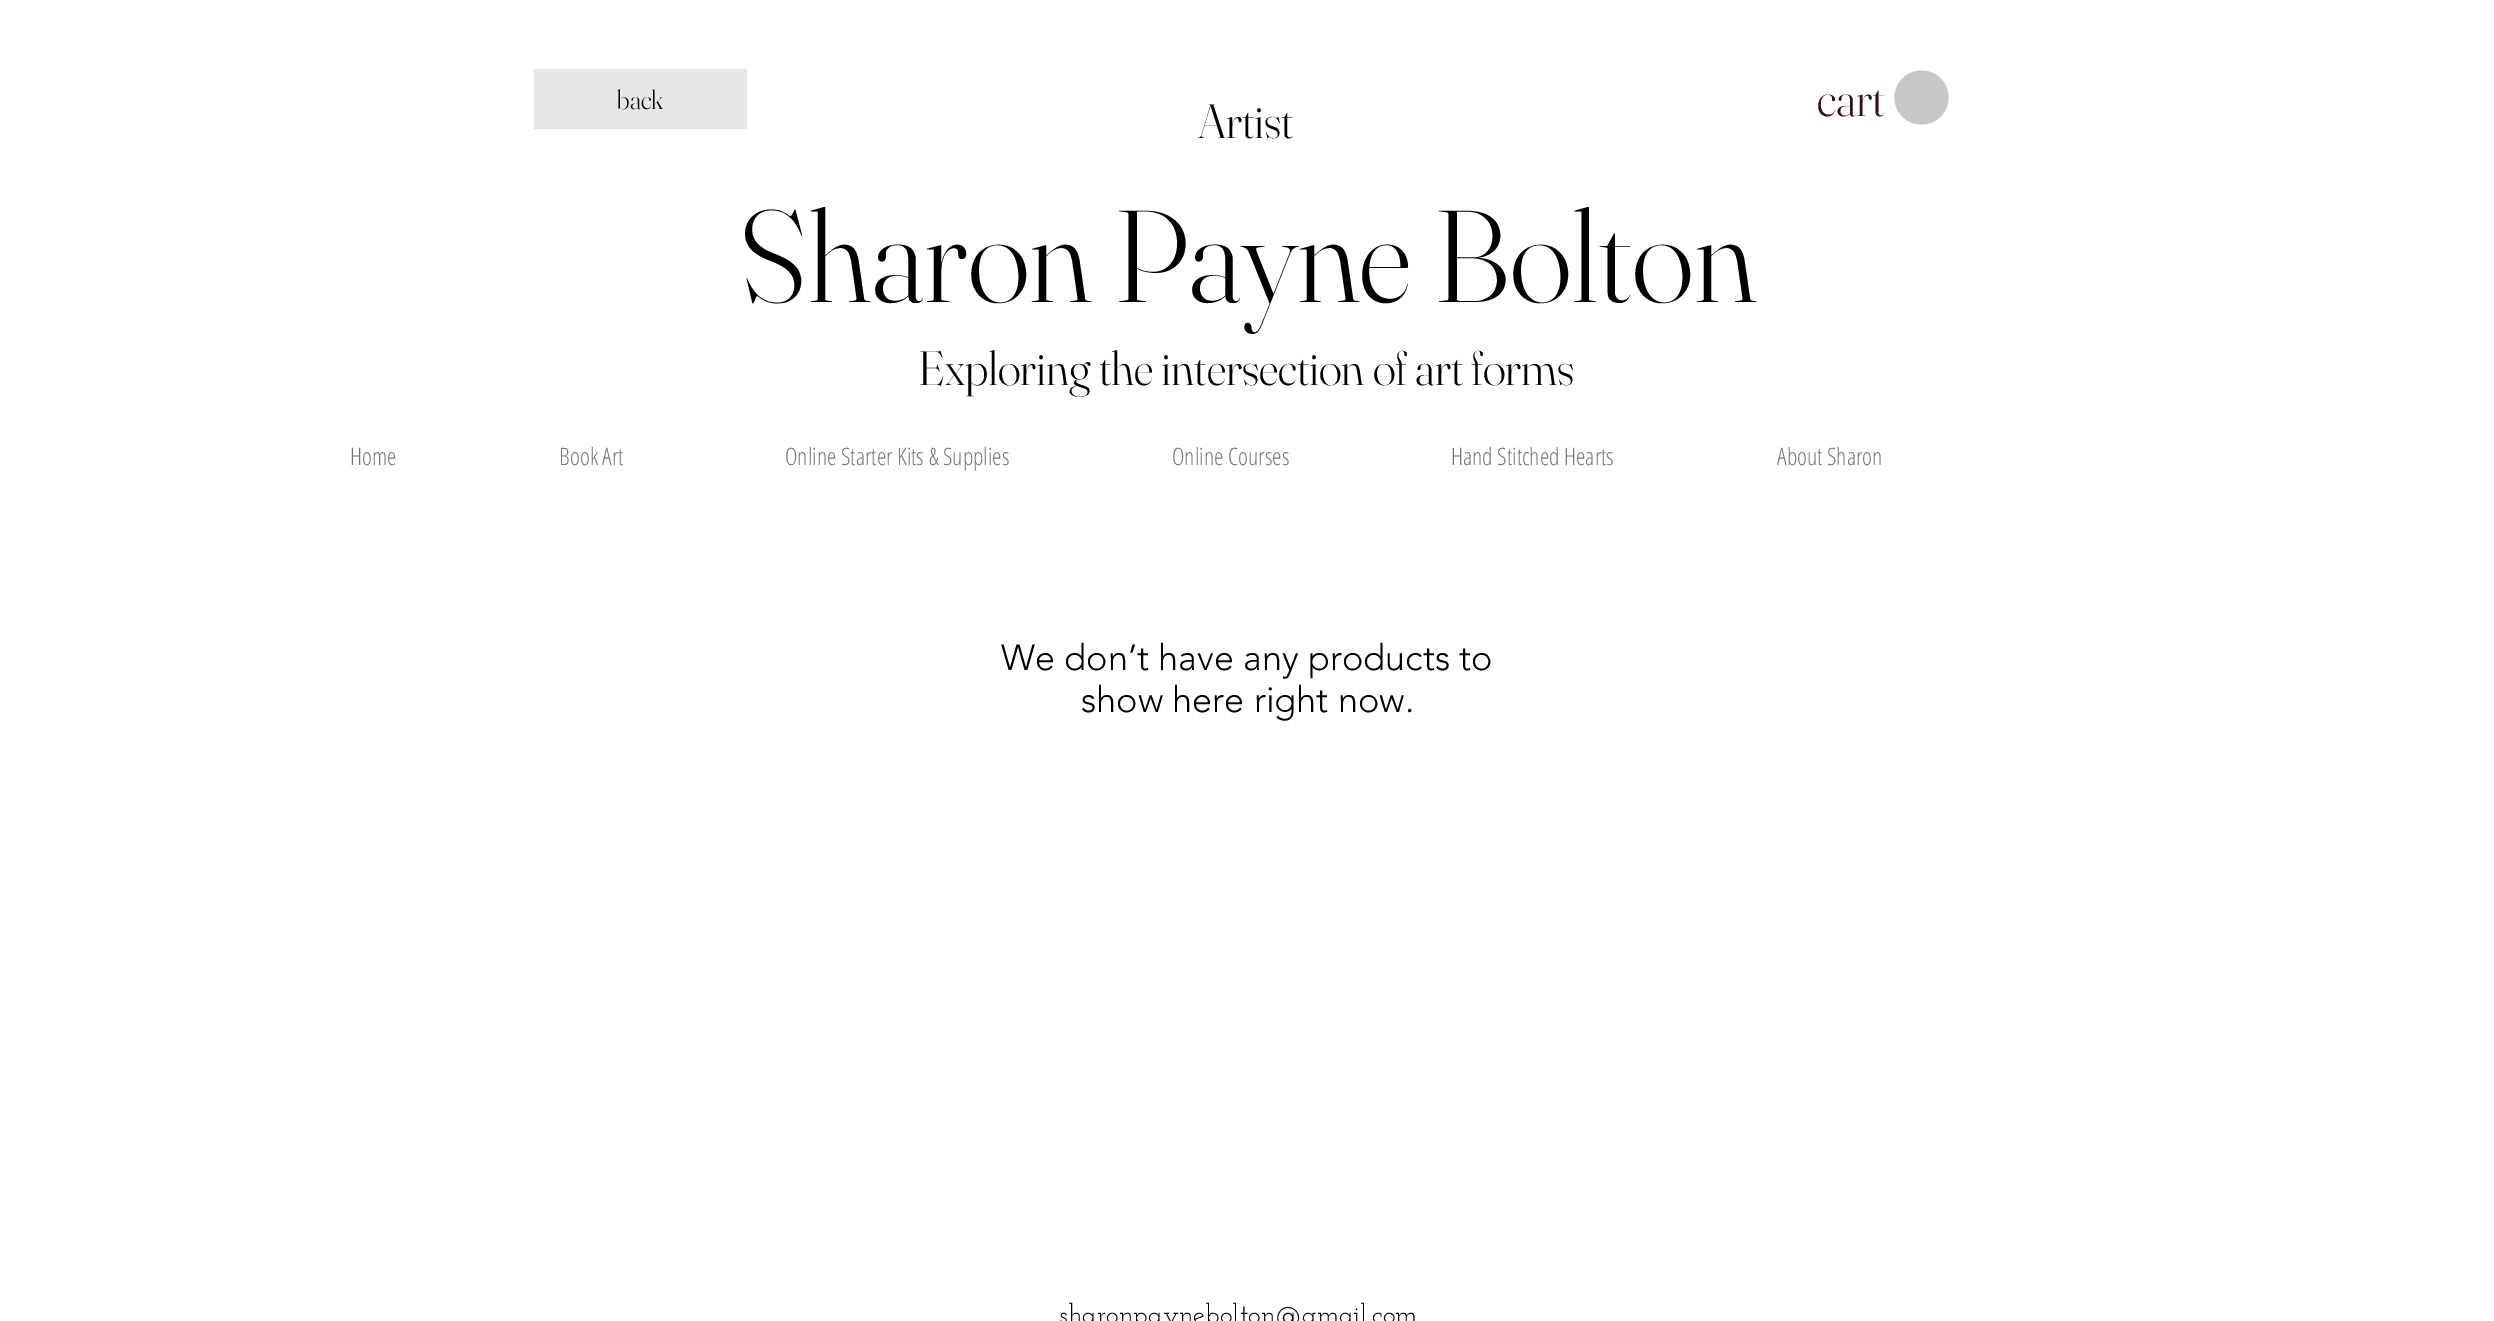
%!PS
<< /PageSize [2494 1321] >> setpagedevice
/f/fill load def
/C { dup -16 bitshift 255 div exch dup -8 bitshift 255 and 255 div exch 255 and 255 div setrgbcolor } def
/F { [ exch dup neg 0 0 3 -1 roll 0 0 ] selectfont } def
/T { moveto show } def
/R { rectfill } def
/O { newpath 0 360 arc closepath } def
0 1321 translate 1 -1 scale
4 setmiterlimit
16#FFFFFF C
0 0 2494 1321 R
16#E8E6E6 C
534 69 213 60 R
/Fraunces-Light 27 F
16#000000 C
(back) 617 109 T
/Fraunces-Light 48 F
(Artist) 1198 138 T
16#C7C7C7 C
1921.5 97.5 27 O f
/Fraunces-Light 49 F
16#350D18 C
(cart) 1817 116 T
/Fraunces-Light 130.5 F
16#000000 C
(Sharon Payne Bolton) 738 302 T
/Fraunces-Light 48 F
(Exploring the intersection of art forms) 918 385 T
/OpenSansCondensed-Light 24 F
16#757575 C
(Home) 350 465 T
(Book Art) 559 465 T
(Online Starter Kits & Supplies) 785 465 T
(Online Courses) 1172 465 T
(Hand Stitched Hearts) 1451 465 T
(About Sharon) 1777 465 T
/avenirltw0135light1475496-Light 36 F
16#000000 C
(We don’t have any products to) 1001 670 T
(show here right now.) 1081 712 T
/JosefinSlab-Regular 27 F
(sharonpaynebolton@gmail.com) 1059 1323 T
showpage
